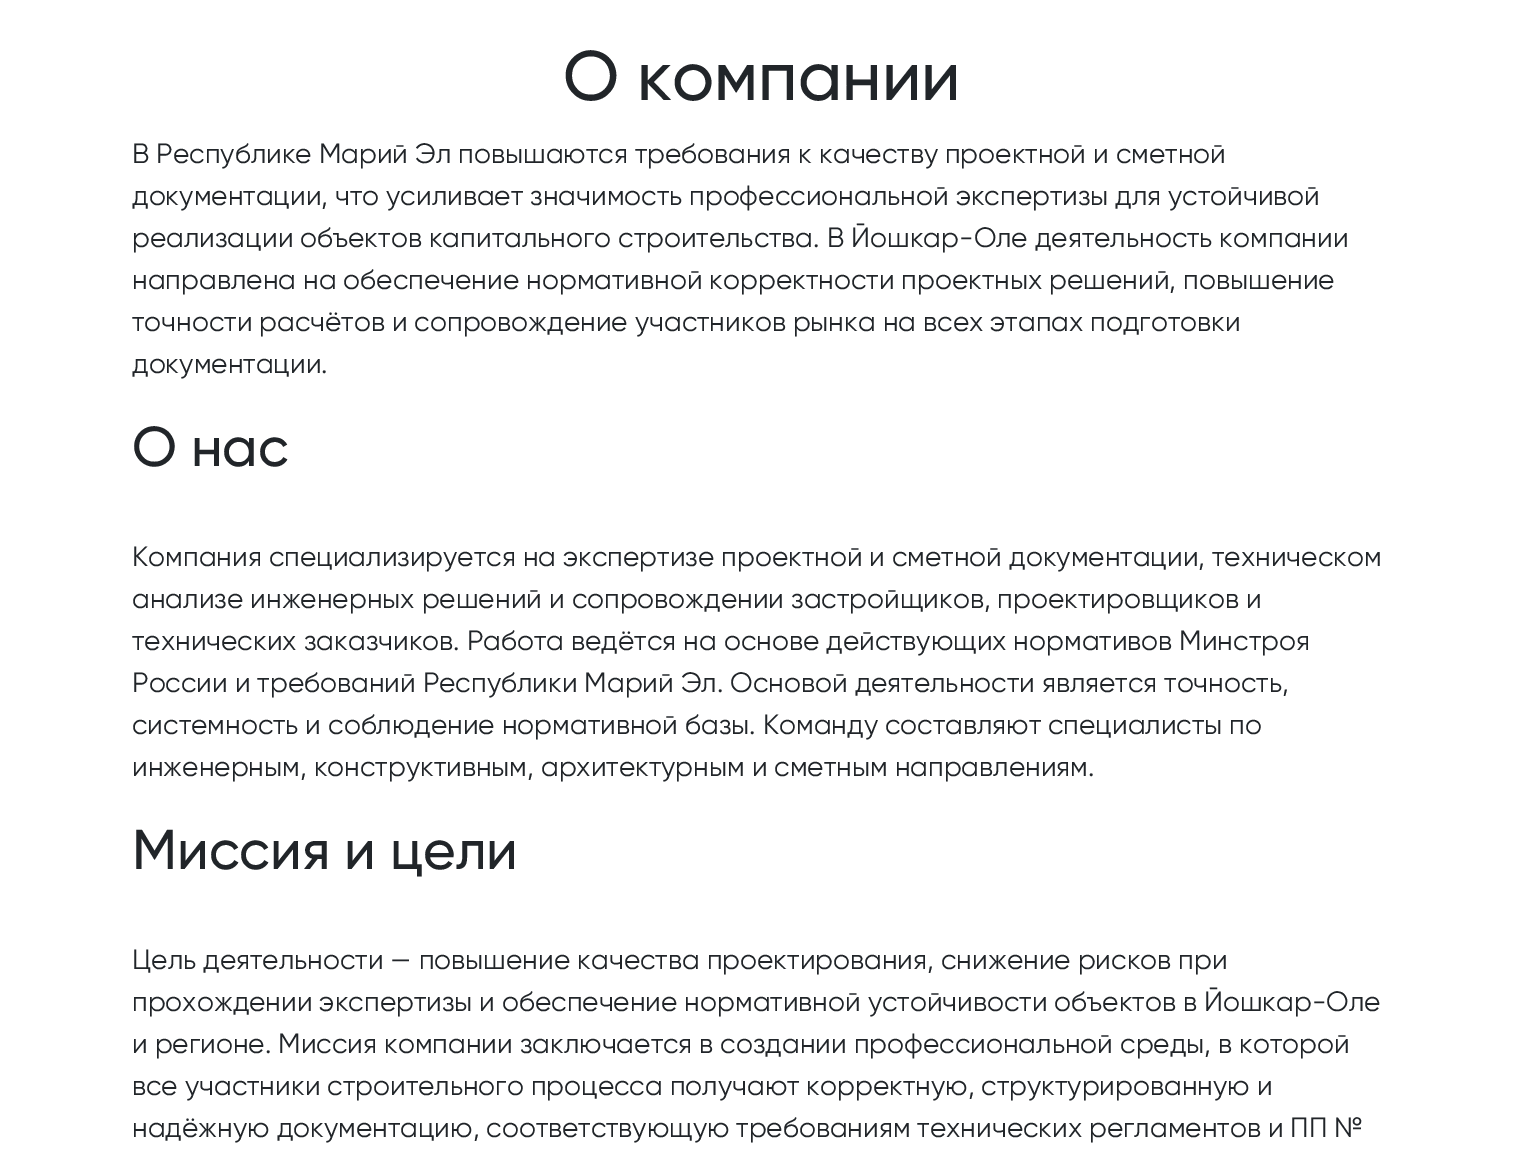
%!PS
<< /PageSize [1524 1161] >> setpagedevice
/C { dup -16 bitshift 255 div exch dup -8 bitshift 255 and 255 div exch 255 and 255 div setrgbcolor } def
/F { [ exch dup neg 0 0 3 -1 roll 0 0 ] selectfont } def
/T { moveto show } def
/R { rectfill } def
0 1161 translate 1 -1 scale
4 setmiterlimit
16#FFFFFF C
0 0 1524 1161 R
/Gilroy-Medium 70 F
16#212529 C
(О компании) 563 100 T
/Gilroy-Regular 28 F
(В Республике Марий Эл повышаются требования к качеству проектной и сметной) 132 163 T
(документации, что усиливает значимость профессиональной экспертизы для устойчивой) 132 205 T
(реализации объектов капитального строительства. В Йошкар-Оле деятельность компании) 132 247 T
(направлена на обеспечение нормативной корректности проектных решений, повышение) 132 289 T
(точности расчётов и сопровождение участников рынка на всех этапах подготовки) 132 331 T
(документации.) 132 373 T
/Gilroy-Medium 56 F
(О нас) 132 466 T
/Gilroy-Regular 28 F
(Компания специализируется на экспертизе проектной и сметной документации, техническом) 132 566 T
(анализе инженерных решений и сопровождении застройщиков, проектировщиков и) 132 608 T
(технических заказчиков. Работа ведётся на основе действующих нормативов Минстроя) 132 650 T
(России и требований Республики Марий Эл. Основой деятельности является точность,) 132 692 T
(системность и соблюдение нормативной базы. Команду составляют специалисты по) 132 734 T
(инженерным, конструктивным, архитектурным и сметным направлениям.) 132 776 T
/Gilroy-Medium 56 F
(Миссия и цели) 132 869 T
/Gilroy-Regular 28 F
(Цель деятельности — повышение качества проектирования, снижение рисков при) 132 969 T
(прохождении экспертизы и обеспечение нормативной устойчивости объектов в Йошкар-Оле) 132 1011 T
(и регионе. Миссия компании заключается в создании профессиональной среды, в которой) 132 1053 T
(все участники строительного процесса получают корректную, структурированную и) 132 1095 T
(надёжную документацию, соответствующую требованиям технических регламентов и ПП №) 132 1137 T
showpage
